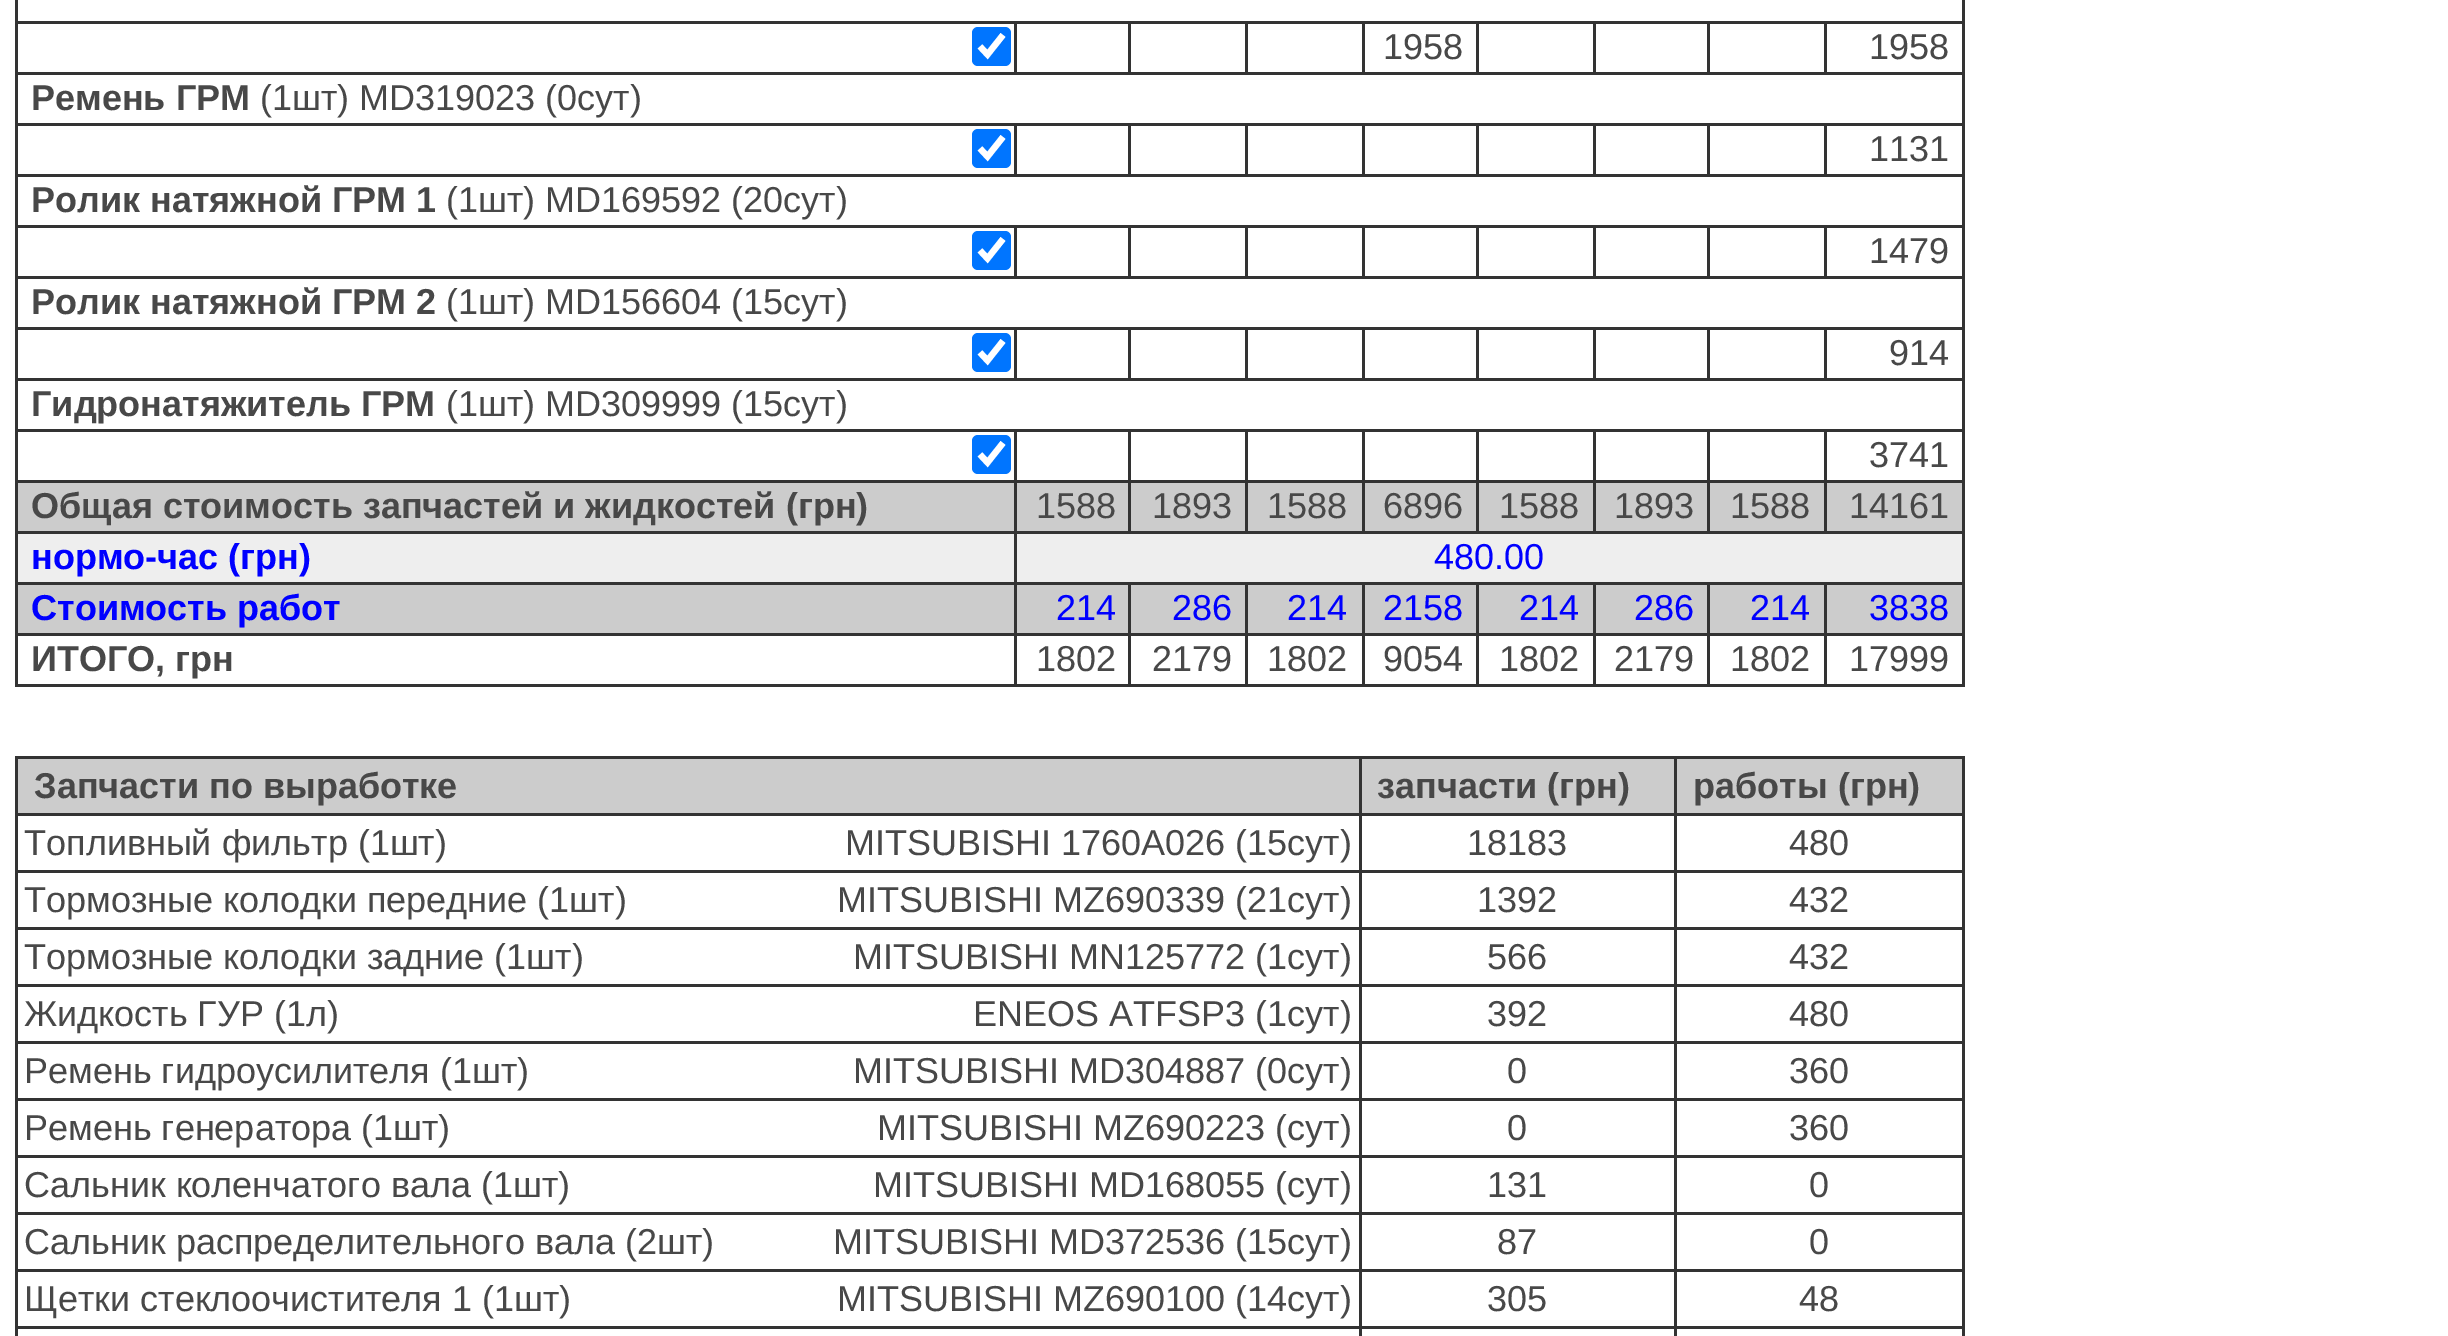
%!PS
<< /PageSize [2448 1336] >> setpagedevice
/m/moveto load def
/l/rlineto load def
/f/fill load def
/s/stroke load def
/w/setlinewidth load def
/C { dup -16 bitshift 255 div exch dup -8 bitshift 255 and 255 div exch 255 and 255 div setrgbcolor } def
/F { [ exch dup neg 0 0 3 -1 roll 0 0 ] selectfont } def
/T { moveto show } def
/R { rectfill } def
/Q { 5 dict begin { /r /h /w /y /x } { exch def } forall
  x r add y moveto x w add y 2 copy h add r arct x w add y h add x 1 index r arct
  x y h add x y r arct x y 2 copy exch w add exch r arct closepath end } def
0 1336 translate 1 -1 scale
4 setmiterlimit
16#FFFFFF C
0 0 2448 1336 R
16#333333 C
1824 21 141 3 R
15 72 1950 3 R
1824 21 3 54 R
1707 21 120 3 R
1707 21 3 54 R
1593 21 117 3 R
1593 21 3 54 R
1476 21 120 3 R
1476 21 3 54 R
1362 21 117 3 R
1362 21 3 54 R
1245 21 120 3 R
1245 21 3 54 R
1128 21 120 3 R
1128 21 3 54 R
1014 21 117 3 R
1014 21 3 54 R
15 21 1002 3 R
1824 123 141 3 R
15 174 1950 3 R
1824 123 3 54 R
1707 123 120 3 R
1707 123 3 54 R
1593 123 117 3 R
1593 123 3 54 R
1476 123 120 3 R
1476 123 3 54 R
1362 123 117 3 R
1362 123 3 54 R
1245 123 120 3 R
1245 123 3 54 R
1128 123 120 3 R
1128 123 3 54 R
1014 123 117 3 R
1014 123 3 54 R
15 123 1002 3 R
1824 225 141 3 R
15 276 1950 3 R
1824 225 3 54 R
1707 225 120 3 R
1707 225 3 54 R
1593 225 117 3 R
1593 225 3 54 R
1476 225 120 3 R
1476 225 3 54 R
1362 225 117 3 R
1362 225 3 54 R
1245 225 120 3 R
1245 225 3 54 R
1128 225 120 3 R
1128 225 3 54 R
1014 225 117 3 R
1014 225 3 54 R
15 225 1002 3 R
1824 327 141 3 R
15 378 1950 3 R
1824 327 3 54 R
1707 327 120 3 R
1707 327 3 54 R
1593 327 117 3 R
1593 327 3 54 R
1476 327 120 3 R
1476 327 3 54 R
1362 327 117 3 R
1362 327 3 54 R
1245 327 120 3 R
1245 327 3 54 R
1128 327 120 3 R
1128 327 3 54 R
1014 327 117 3 R
1014 327 3 54 R
15 327 1002 3 R
1824 429 141 3 R
1824 480 141 3 R
16#CCCCCC C
18 483 1944 48 R
16#333333 C
1014 531 951 3 R
1824 480 3 54 R
1707 480 120 3 R
1824 429 3 54 R
1707 429 120 3 R
1707 480 3 54 R
1593 480 117 3 R
1707 429 3 54 R
1593 429 117 3 R
1593 480 3 54 R
1476 480 120 3 R
1593 429 3 54 R
1476 429 120 3 R
1476 480 3 54 R
1362 480 117 3 R
1476 429 3 54 R
1362 429 117 3 R
1362 480 3 54 R
1245 480 120 3 R
1362 429 3 54 R
1245 429 120 3 R
1245 480 3 54 R
1128 480 120 3 R
1245 429 3 54 R
1128 429 120 3 R
1128 480 3 54 R
1014 480 117 3 R
1128 429 3 54 R
1014 429 117 3 R
16#EEEEEE C
18 534 1944 48 R
16#333333 C
1824 582 141 3 R
16#CCCCCC C
18 585 1944 48 R
16#333333 C
1824 633 141 3 R
1962 633 3 54 R
1824 684 141 3 R
1824 633 3 54 R
1707 633 120 3 R
1824 582 3 54 R
1707 582 120 3 R
1707 684 120 3 R
1707 633 3 54 R
1593 633 117 3 R
1707 582 3 54 R
1593 582 117 3 R
1593 684 117 3 R
1593 633 3 54 R
1476 633 120 3 R
1593 582 3 54 R
1476 582 120 3 R
1476 684 120 3 R
1476 633 3 54 R
1362 633 117 3 R
1476 582 3 54 R
1362 582 117 3 R
1362 684 117 3 R
1362 633 3 54 R
1245 633 120 3 R
1362 582 3 54 R
1245 582 120 3 R
1245 684 120 3 R
1245 633 3 54 R
1128 633 120 3 R
1245 582 3 54 R
1128 582 120 3 R
1128 684 120 3 R
1128 633 3 54 R
1014 633 117 3 R
1128 582 3 54 R
1014 582 117 3 R
1014 684 117 3 R
1014 633 3 54 R
15 633 1002 3 R
1014 582 3 54 R
15 582 1002 3 R
1014 531 3 54 R
15 531 1002 3 R
1014 480 3 54 R
15 480 1002 3 R
1014 429 3 54 R
15 429 1002 3 R
15 684 1002 3 R
15 633 3 54 R
15 582 3 54 R
15 531 3 54 R
15 480 3 54 R
15 429 3 54 R
15 378 3 54 R
15 327 3 54 R
15 276 3 54 R
15 225 3 54 R
15 174 3 54 R
15 123 3 54 R
15 72 3 54 R
15 0 3 75 R
16#0075FF C
972 27 39 39 6 Q f
16#FFFFFF C
6.2 w
980 46.5 m 7.5 8 l 15.5 -19.5 l s
/LiberationSans-Regular 36 F
16#484848 C
(1958) 1383 59 T
16#333333 C
1962 582 3 54 R
1962 531 3 54 R
1962 480 3 54 R
1962 429 3 54 R
1962 378 3 54 R
1962 327 3 54 R
1962 276 3 54 R
1962 225 3 54 R
1962 174 3 54 R
1962 123 3 54 R
1962 72 3 54 R
1962 0 3 75 R
16#484848 C
(1958) 1869 59 T
/LiberationSans-Bold 36 F
(Ремень ГРМ) 31 110 T
/LiberationSans-Regular 36 F
(\(1шт\) MD319023 \(0сут\)) 260 110 T
16#0075FF C
972 129 39 39 6 Q f
16#FFFFFF C
980 148.5 m 7.5 8 l 15.5 -19.5 l s
16#484848 C
(1131) 1869 161 T
/LiberationSans-Bold 36 F
(Ролик натяжной ГРМ 1) 31 212 T
/LiberationSans-Regular 36 F
(\(1шт\) MD169592 \(20сут\)) 446 212 T
16#0075FF C
972 231 39 39 6 Q f
16#FFFFFF C
980 250.5 m 7.5 8 l 15.5 -19.5 l s
16#484848 C
(1479) 1869 263 T
/LiberationSans-Bold 36 F
(Ролик натяжной ГРМ 2) 31 314 T
/LiberationSans-Regular 36 F
(\(1шт\) MD156604 \(15сут\)) 446 314 T
16#0075FF C
972 333 39 39 6 Q f
16#FFFFFF C
980 352.5 m 7.5 8 l 15.5 -19.5 l s
16#484848 C
(914) 1889 365 T
/LiberationSans-Bold 36 F
(Гидронатяжитель ГРМ) 31 416 T
/LiberationSans-Regular 36 F
(\(1шт\) MD309999 \(15сут\)) 446 416 T
16#0075FF C
972 435 39 39 6 Q f
16#FFFFFF C
980 454.5 m 7.5 8 l 15.5 -19.5 l s
16#484848 C
(3741) 1869 467 T
/LiberationSans-Bold 36 F
(Общая стоимость запчастей и жидкостей \(грн\)) 31 518 T
/LiberationSans-Regular 36 F
(1588) 1036 518 T
(1893) 1152 518 T
(1588) 1267 518 T
(6896) 1383 518 T
(1588) 1499 518 T
(1893) 1614 518 T
(1588) 1730 518 T
(14161) 1849 518 T
/LiberationSans-Bold 36 F
16#0000FF C
(нормо-час \(грн\)) 31 569 T
/LiberationSans-Regular 36 F
(480.00) 1434 569 T
/LiberationSans-Bold 36 F
(Стоимость работ) 31 620 T
/LiberationSans-Regular 36 F
(214) 1056 620 T
(286) 1172 620 T
(214) 1287 620 T
(2158) 1383 620 T
(214) 1519 620 T
(286) 1634 620 T
(214) 1750 620 T
(3838) 1869 620 T
/LiberationSans-Bold 36 F
16#484848 C
(ИТОГО, грн) 31 671 T
/LiberationSans-Regular 36 F
(1802) 1036 671 T
(2179) 1152 671 T
(1802) 1267 671 T
(9054) 1383 671 T
(1802) 1499 671 T
(2179) 1614 671 T
(1802) 1730 671 T
(17999) 1849 671 T
16#CCCCCC C
18 759 1944 54 R
16#333333 C
1674 756 291 3 R
1674 813 291 3 R
1674 870 291 3 R
1674 927 291 3 R
1674 984 291 3 R
1674 1041 291 3 R
1674 1098 291 3 R
1674 1155 291 3 R
1674 1212 291 3 R
1674 1269 291 3 R
1674 1326 291 3 R
1674 1326 3 10 R
1359 1326 318 3 R
1674 1269 3 60 R
1359 1269 318 3 R
1674 1212 3 60 R
1359 1212 318 3 R
1674 1155 3 60 R
1359 1155 318 3 R
1674 1098 3 60 R
1359 1098 318 3 R
1674 1041 3 60 R
1359 1041 318 3 R
1674 984 3 60 R
1359 984 318 3 R
1674 927 3 60 R
1359 927 318 3 R
1674 870 3 60 R
1359 870 318 3 R
1674 813 3 60 R
1359 813 318 3 R
1674 756 3 60 R
1359 756 318 3 R
1359 1326 3 10 R
15 1326 1347 3 R
1359 1269 3 60 R
15 1269 1347 3 R
1359 1212 3 60 R
15 1212 1347 3 R
1359 1155 3 60 R
15 1155 1347 3 R
1359 1098 3 60 R
15 1098 1347 3 R
1359 1041 3 60 R
15 1041 1347 3 R
1359 984 3 60 R
15 984 1347 3 R
1359 927 3 60 R
15 927 1347 3 R
1359 870 3 60 R
15 870 1347 3 R
1359 813 3 60 R
15 813 1347 3 R
1359 756 3 60 R
15 756 1347 3 R
15 1326 3 10 R
15 1269 3 60 R
15 1212 3 60 R
15 1155 3 60 R
15 1098 3 60 R
15 1041 3 60 R
15 984 3 60 R
15 927 3 60 R
15 870 3 60 R
15 813 3 60 R
15 756 3 60 R
/LiberationSans-Bold 36 F
16#484848 C
(Запчасти по выработке) 34 798 T
(запчасти \(грн\)) 1377 798 T
16#333333 C
1962 1326 3 10 R
1962 1269 3 60 R
1962 1212 3 60 R
1962 1155 3 60 R
1962 1098 3 60 R
1962 1041 3 60 R
1962 984 3 60 R
1962 927 3 60 R
1962 870 3 60 R
1962 813 3 60 R
1962 756 3 60 R
16#484848 C
(работы \(грн\)) 1693 798 T
/LiberationSans-Regular 36 F
(Топливный фильтр \(1шт\)) 24 855 T
(MITSUBISHI 1760A026 \(15сут\)) 845 855 T
(18183) 1467 855 T
(480) 1789 855 T
(Тормозные колодки передние \(1шт\)) 24 912 T
(MITSUBISHI MZ690339 \(21сут\)) 837 912 T
(1392) 1477 912 T
(432) 1789 912 T
(Тормозные колодки задние \(1шт\)) 24 969 T
(MITSUBISHI MN125772 \(1сут\)) 853 969 T
(566) 1487 969 T
(432) 1789 969 T
(Жидкость ГУР \(1л\)) 24 1026 T
(ENEOS ATFSP3 \(1сут\)) 973 1026 T
(392) 1487 1026 T
(480) 1789 1026 T
(Ремень гидроусилителя \(1шт\)) 24 1083 T
(MITSUBISHI MD304887 \(0сут\)) 853 1083 T
(0) 1507 1083 T
(360) 1789 1083 T
(Ремень генератора \(1шт\)) 24 1140 T
(MITSUBISHI MZ690223 \(сут\)) 877 1140 T
(0) 1507 1140 T
(360) 1789 1140 T
(Сальник коленчатого вала \(1шт\)) 24 1197 T
(MITSUBISHI MD168055 \(сут\)) 873 1197 T
(131) 1487 1197 T
(0) 1809 1197 T
(Сальник распределительного вала \(2шт\)) 24 1254 T
(MITSUBISHI MD372536 \(15сут\)) 833 1254 T
(87) 1497 1254 T
(0) 1809 1254 T
(Щетки стеклоочистителя 1 \(1шт\)) 24 1311 T
(MITSUBISHI MZ690100 \(14сут\)) 837 1311 T
(305) 1487 1311 T
(48) 1799 1311 T
showpage
